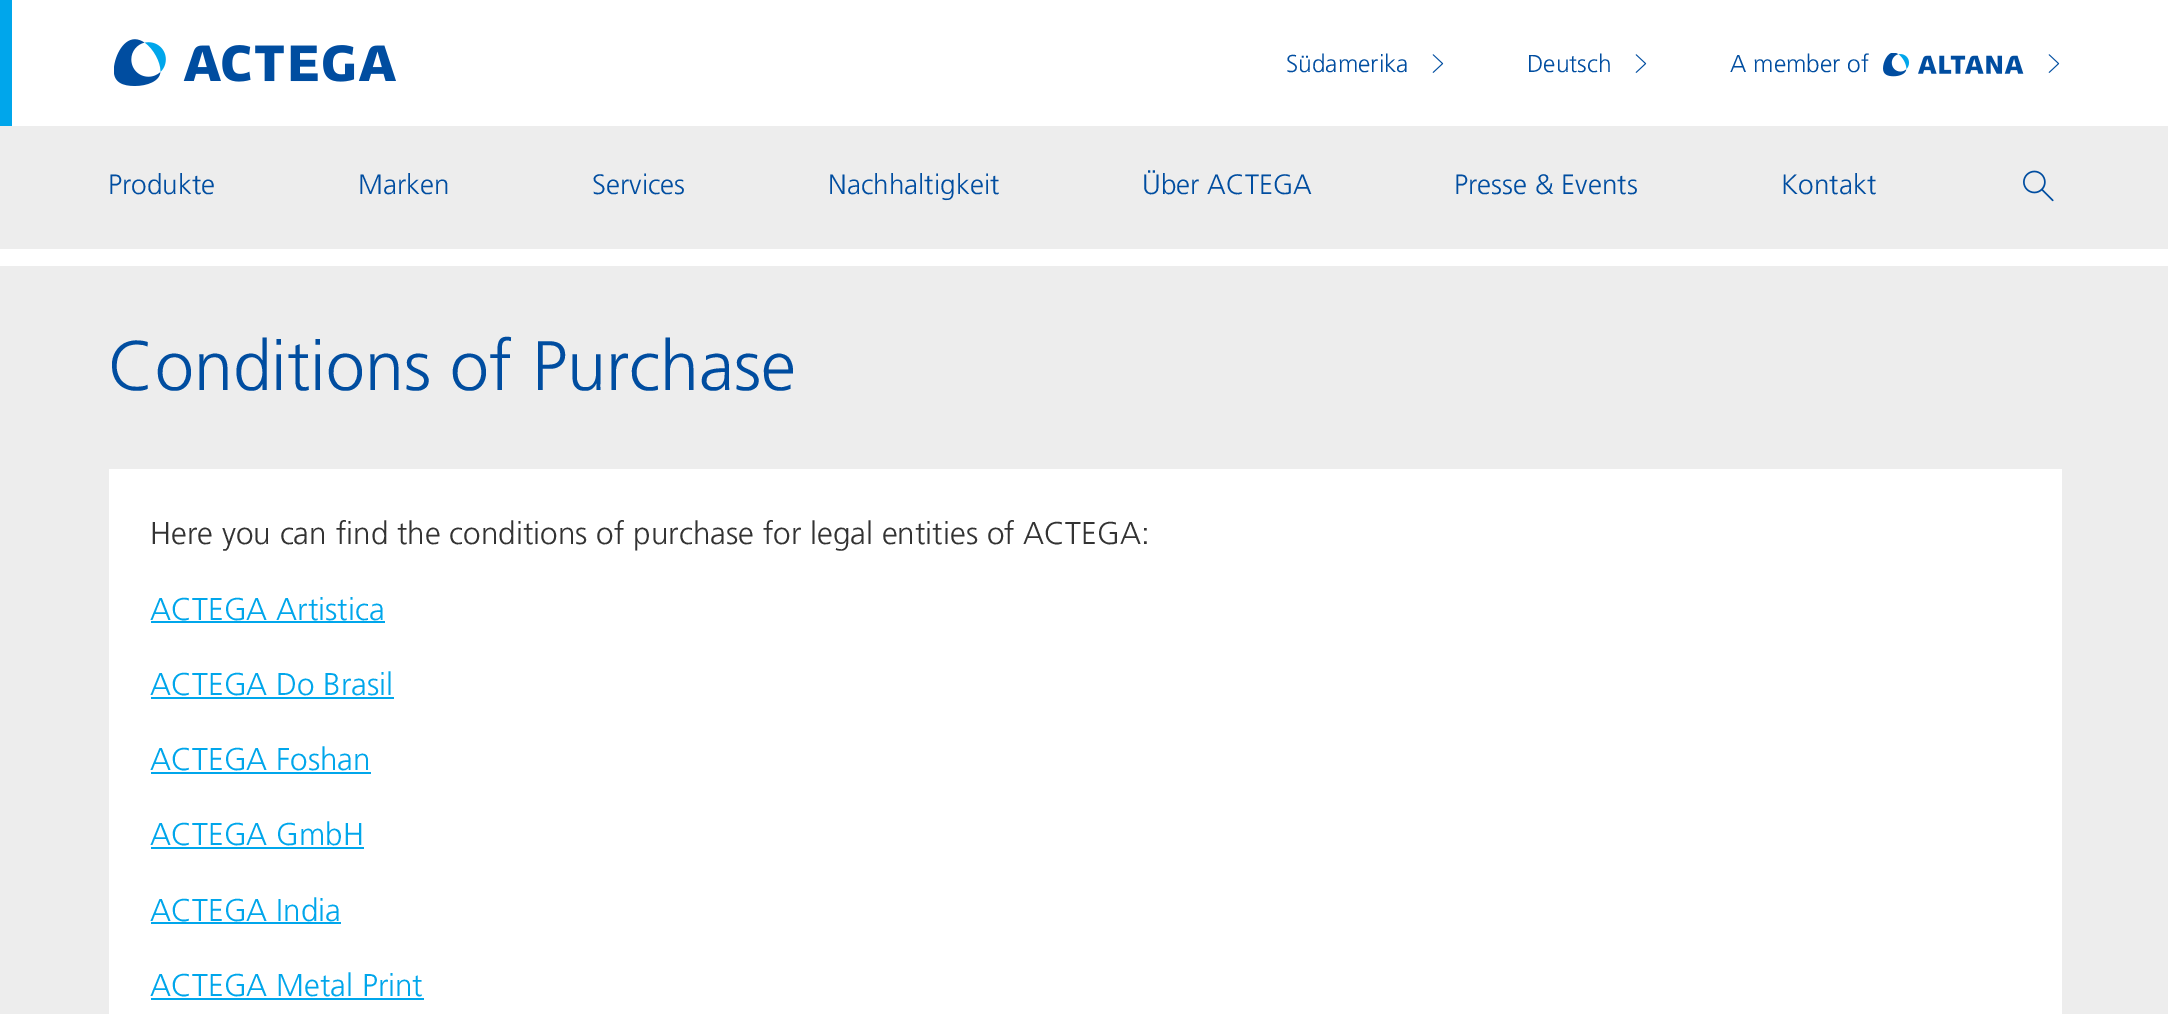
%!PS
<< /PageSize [2168 1014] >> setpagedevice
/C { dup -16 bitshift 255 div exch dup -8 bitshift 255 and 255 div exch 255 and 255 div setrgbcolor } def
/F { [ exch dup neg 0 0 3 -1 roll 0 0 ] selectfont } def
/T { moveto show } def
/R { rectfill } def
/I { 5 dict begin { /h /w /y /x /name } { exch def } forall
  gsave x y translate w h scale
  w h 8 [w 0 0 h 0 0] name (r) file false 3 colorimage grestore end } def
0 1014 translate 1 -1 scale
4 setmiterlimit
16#EDEDED C
0 0 2168 1014 R
16#FFFFFF C
12 0 2156 126 R
16#00A6EB C
0 0 12 126 R
(1.rgb) 114 39 282 47 I
/Frutiger-Light 24.5 F
16#004DA0 C
(Südamerika) 1286 72 T
(2.rgb) 1432 54 12 19 I
(Deutsch) 1527 72 T
(2.rgb) 1635 54 12 19 I
(A member of) 1730 72 T
(3.rgb) 1883 53 141 24 I
(2.rgb) 2048 54 12 19 I
16#FFFFFF C
0 249 2168 17 R
/Frutiger-Light 28 F
16#004DA0 C
(Produkte) 108 194 T
(Marken) 358 194 T
(Services) 592 194 T
(Nachhaltigkeit) 828 194 T
(Über ACTEGA) 1142 194 T
(Presse & Events) 1454 194 T
(Kontakt) 1781 194 T
(4.rgb) 2023 170 31 32 I
/Frutiger-Light 70 F
(Conditions of Purchase) 108 390 T
16#FFFFFF C
109 469 1953 545 R
/Frutiger-Light 31.5 F
16#333333 C
(Here you can find the conditions of purchase for legal entities of ACTEGA:) 150 544 T
16#00A6EB C
(ACTEGA Artistica) 150 620 T
151 621 234 2 R
(ACTEGA Do Brasil) 150 695 T
151 697 243 2 R
(ACTEGA Foshan) 150 770 T
151 772 220 2 R
(ACTEGA GmbH) 150 845 T
151 847 213 2 R
(ACTEGA India) 150 921 T
151 922 190 2 R
(ACTEGA Metal Print) 150 996 T
151 998 273 2 R
showpage
